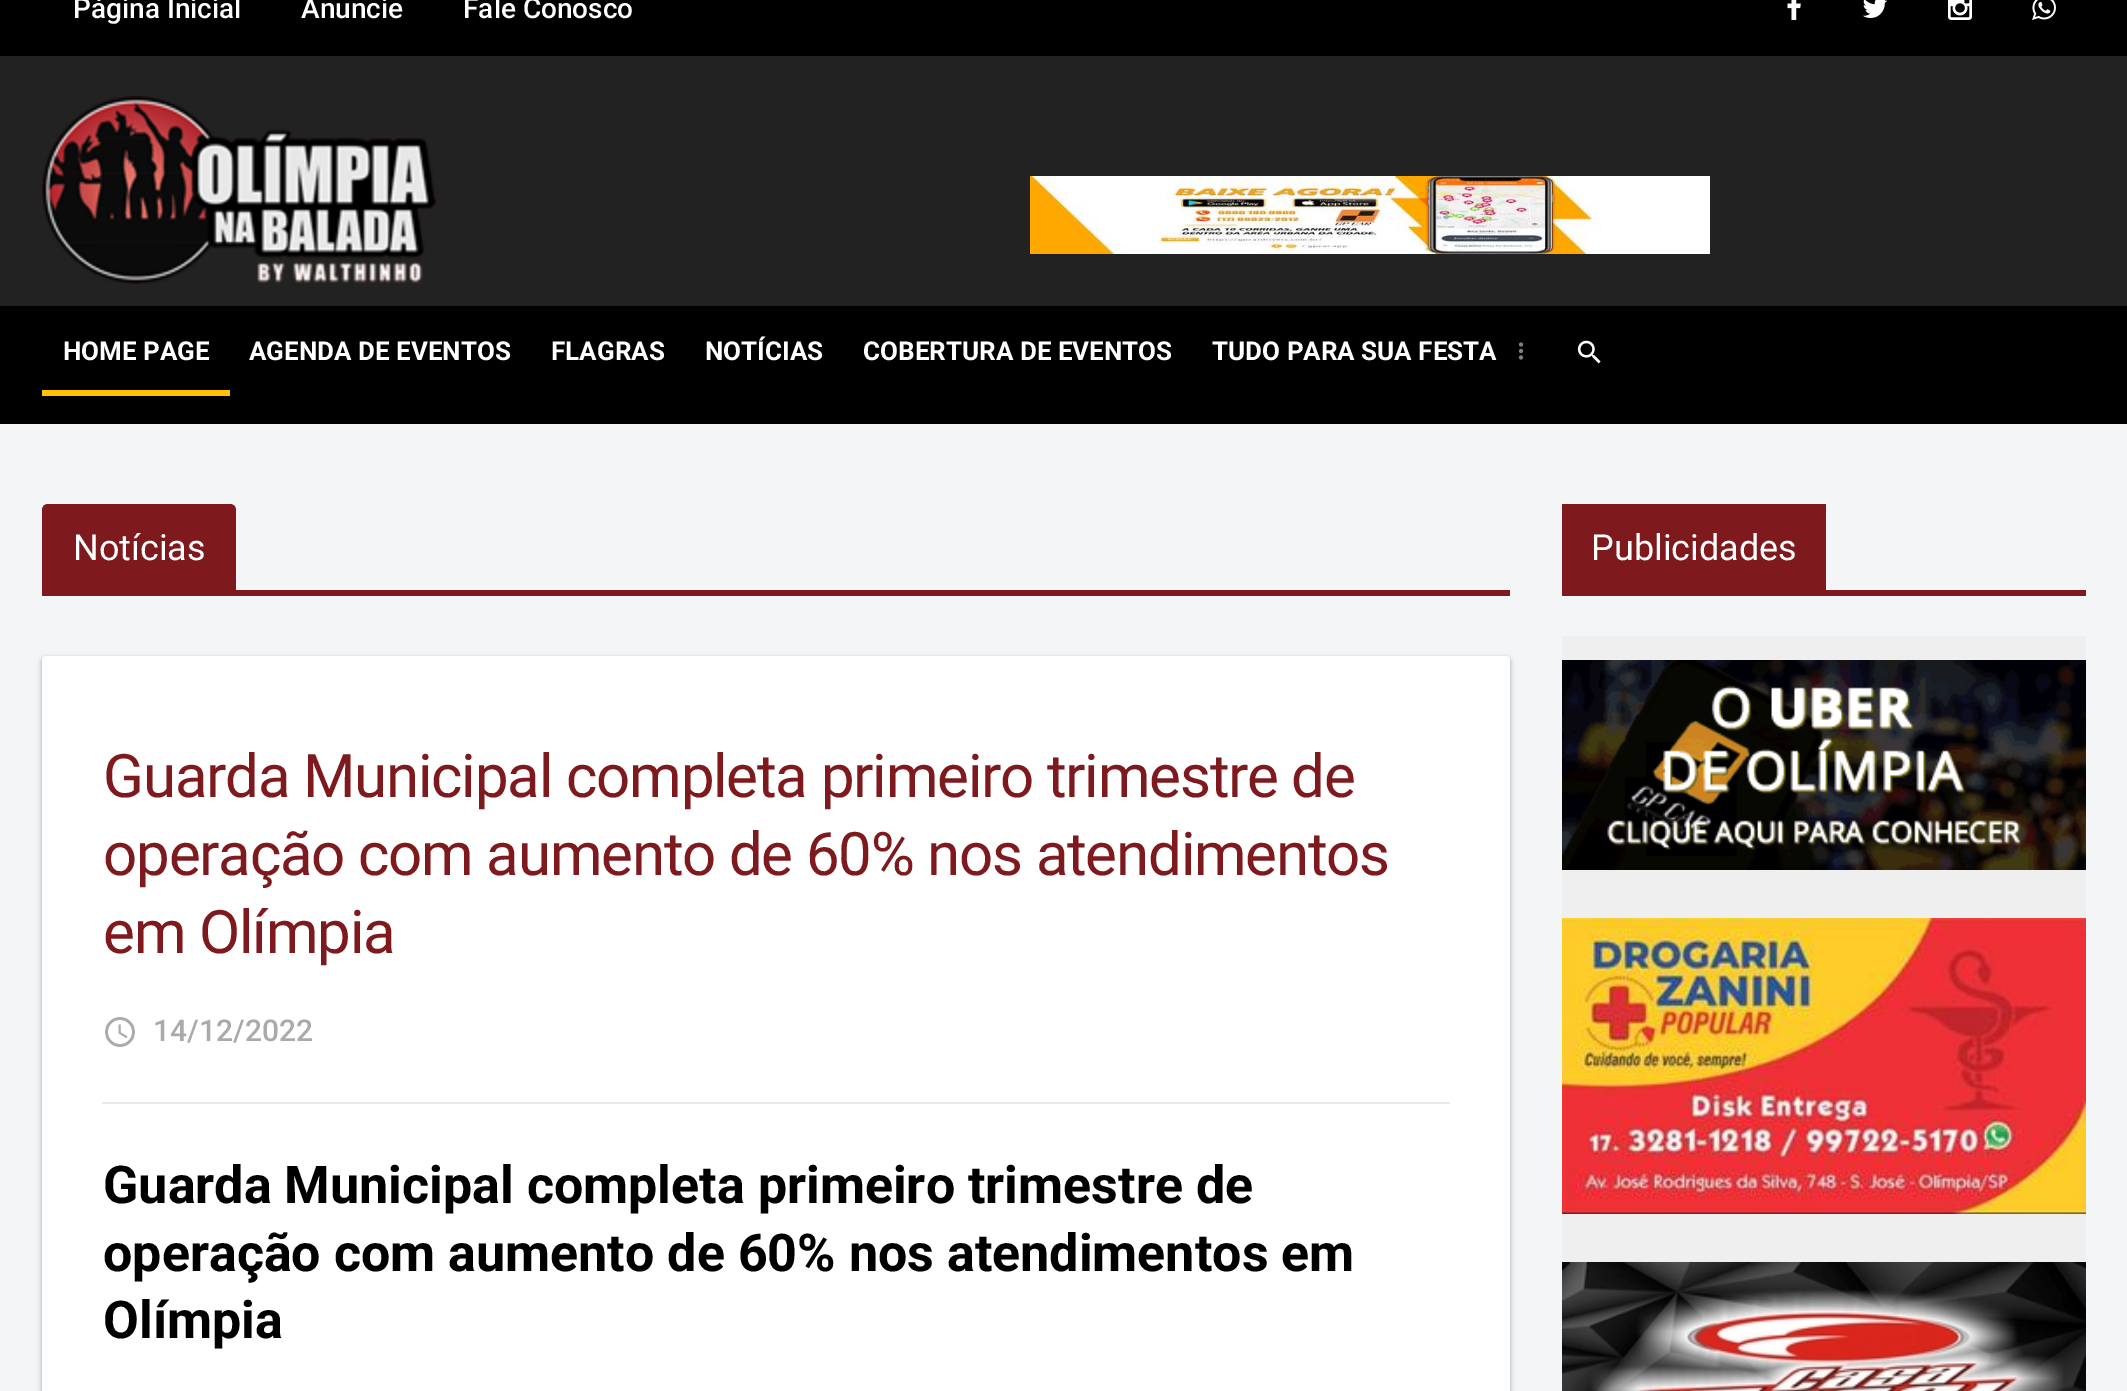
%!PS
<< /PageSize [2127 1391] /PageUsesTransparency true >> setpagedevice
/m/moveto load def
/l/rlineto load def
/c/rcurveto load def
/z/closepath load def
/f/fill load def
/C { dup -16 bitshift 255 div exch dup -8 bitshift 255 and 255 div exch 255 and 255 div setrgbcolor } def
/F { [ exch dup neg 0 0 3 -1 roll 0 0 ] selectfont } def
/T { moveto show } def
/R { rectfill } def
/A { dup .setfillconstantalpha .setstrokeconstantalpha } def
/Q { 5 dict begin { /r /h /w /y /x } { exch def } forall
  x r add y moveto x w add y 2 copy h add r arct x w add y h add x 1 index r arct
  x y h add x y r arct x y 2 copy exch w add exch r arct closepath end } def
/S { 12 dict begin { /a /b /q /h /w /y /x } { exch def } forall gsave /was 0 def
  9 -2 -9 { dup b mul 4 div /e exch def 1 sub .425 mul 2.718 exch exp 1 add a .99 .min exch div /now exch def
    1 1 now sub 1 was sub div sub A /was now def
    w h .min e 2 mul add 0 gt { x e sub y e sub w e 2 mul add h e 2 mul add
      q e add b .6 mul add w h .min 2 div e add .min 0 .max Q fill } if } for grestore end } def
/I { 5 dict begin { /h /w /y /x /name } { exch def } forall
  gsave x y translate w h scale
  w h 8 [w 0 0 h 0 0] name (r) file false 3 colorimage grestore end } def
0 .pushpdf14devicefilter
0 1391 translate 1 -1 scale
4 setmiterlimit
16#222222 C
0 0 2127 1391 R
16#000000 C
0 0 2127 56 R
/Roboto-Medium 28 F
16#FFFFFF C
(Página Inicial) 73 18 T
(Anuncie) 301 18 T
(Fale Conosco) 463 18 T
(1.rgb) 1787 0 14 20 I
(2.rgb) 1862 0 26 18 I
(3.rgb) 1948 0 24 20 I
(4.rgb) 2032 0 24 20 I
(5.rgb) 42 96 394 188 I
(6.rgb) 1030 176 680 78 I
16#000000 C
0 306 2127 118 R
16#FFC100 C
42 390 188 6 R
/Roboto-Bold 26 F
16#FFFFFF C
(HOME PAGE) 63 360 T
(AGENDA DE EVENTOS) 249 360 T
(FLAGRAS) 551 360 T
(NOTÍCIAS) 705 360 T
(COBERTURA DE EVENTOS) 863 360 T
(TUDO PARA SUA FESTA) 1212 360 T
(7.rgb) 1518 342 6 18 I
(8.rgb) 1577 340 24 24 I
16#F4F5F6 C
0 424 2127 967 R
16#7E191D C
42 590 1468 6 R
48 504 m 182 0 l 3.5 0 6 2.5 6 6 c 0 80 l -194 0 l 0 -80 l 0 -3.5 2.5 -6 6 -6 c z f
/Roboto-Regular 36 F
16#FFFFFF C
(Notícias) 73 560 T
16#000000 C
42 658 1468 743 4 2 .24 S
42 658 1468 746 4 3 .12 S
16#FFFFFF C
42 656 1468 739 4 Q f
16#E9EAEA C
102 1102 1348 2 R
/Roboto-Regular 60 F
16#7E191D C
103 797 m -1.2 0 (Guarda Municipal completa primeiro trimestre de) ashow
103 875 m -1.2 0 (operação com aumento de 60% nos atendimentos) ashow
103 953 m -1.2 0 (em Olímpia) ashow
(9.rgb) 105 1017 30 30 I
/Roboto-Medium 30 F
16#AAAAAA C
(14/12/2022) 153 1041 T
/Roboto-Bold 52 F
16#000000 C
(Guarda Municipal completa primeiro trimestre de) 103 1203 T
(operação com aumento de 60% nos atendimentos em) 103 1271 T
(Olímpia) 103 1338 T
16#7E191D C
1562 590 524 6 R
1562 504 264 86 R
/Roboto-Regular 36 F
16#FFFFFF C
(Publicidades) 1591 560 T
16#EFEFEF C
1562 636 524 626 R
(10.rgb) 1562 660 524 210 I
(11.rgb) 1562 918 524 296 I
(12.rgb) 1562 1262 524 129 I
.poppdf14devicefilter showpage
